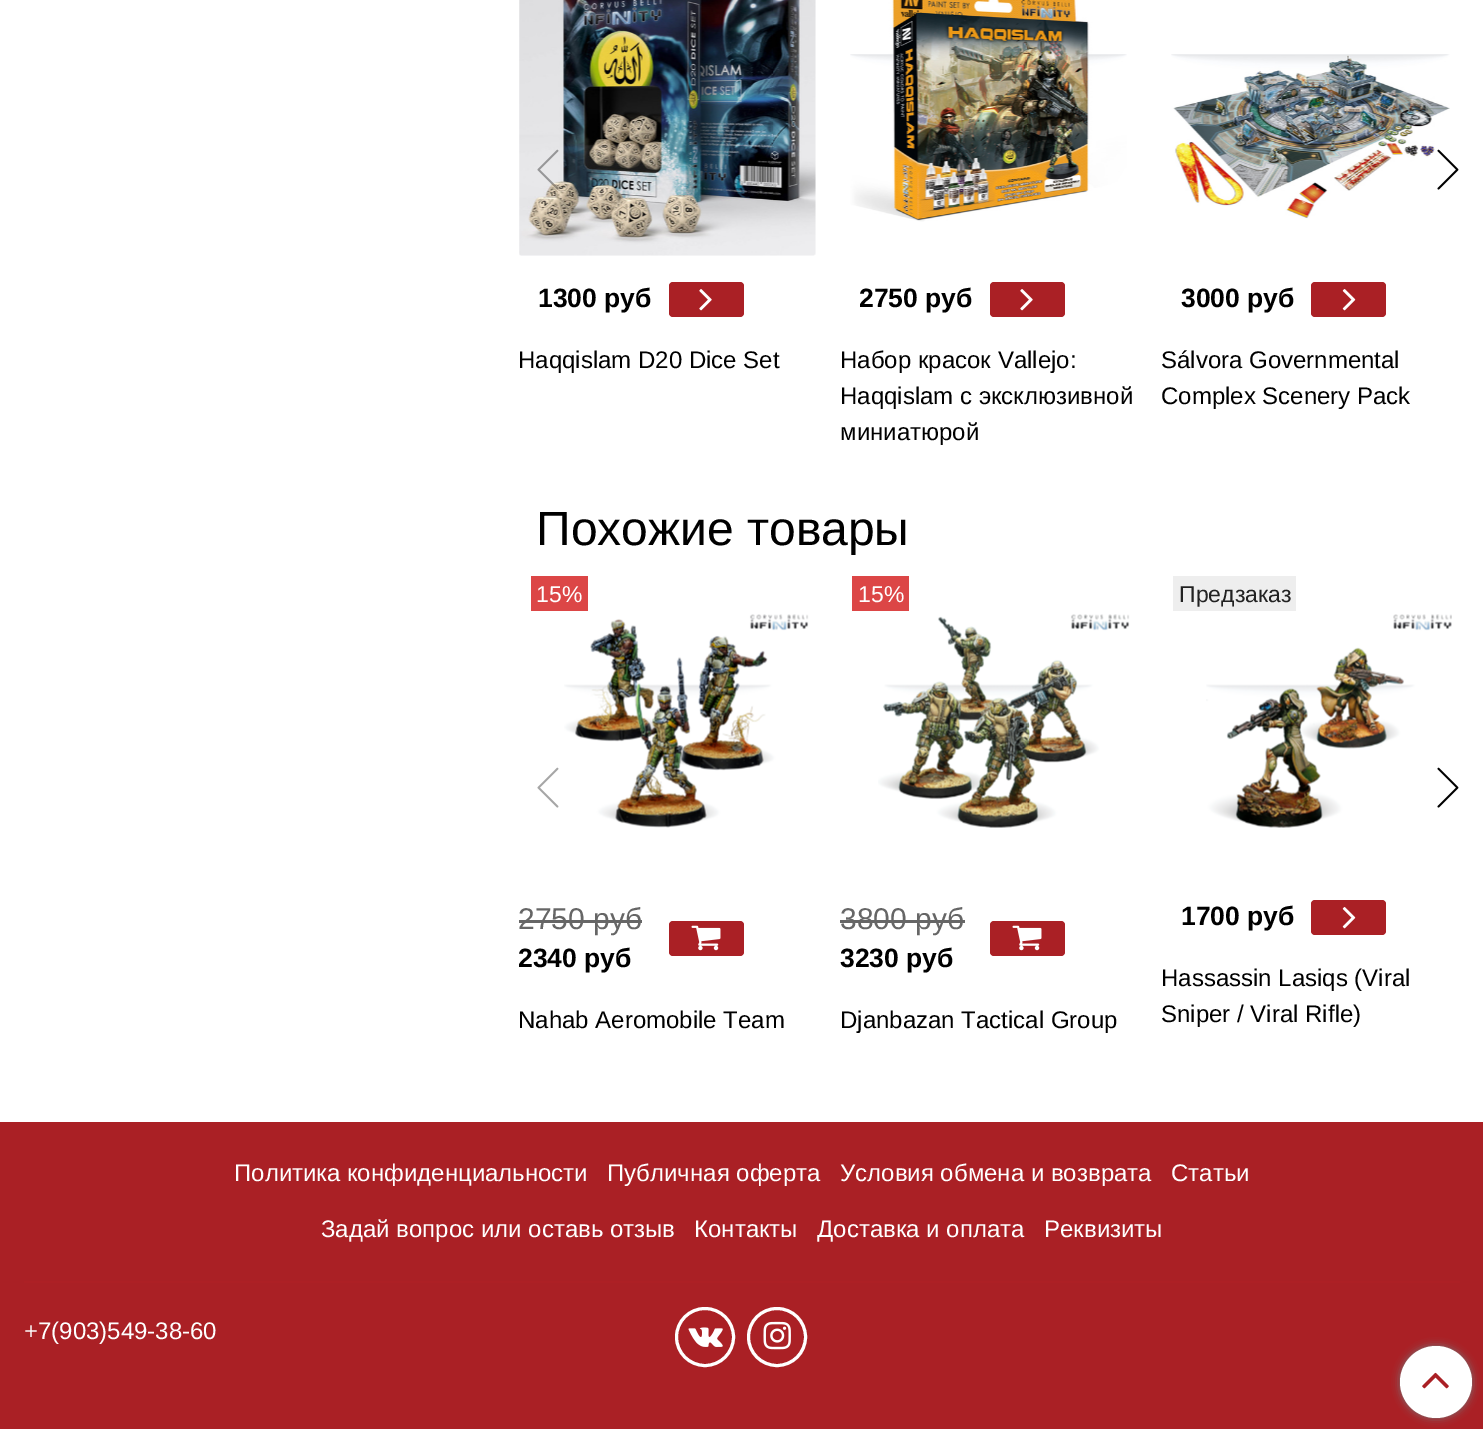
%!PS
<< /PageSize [1483 1429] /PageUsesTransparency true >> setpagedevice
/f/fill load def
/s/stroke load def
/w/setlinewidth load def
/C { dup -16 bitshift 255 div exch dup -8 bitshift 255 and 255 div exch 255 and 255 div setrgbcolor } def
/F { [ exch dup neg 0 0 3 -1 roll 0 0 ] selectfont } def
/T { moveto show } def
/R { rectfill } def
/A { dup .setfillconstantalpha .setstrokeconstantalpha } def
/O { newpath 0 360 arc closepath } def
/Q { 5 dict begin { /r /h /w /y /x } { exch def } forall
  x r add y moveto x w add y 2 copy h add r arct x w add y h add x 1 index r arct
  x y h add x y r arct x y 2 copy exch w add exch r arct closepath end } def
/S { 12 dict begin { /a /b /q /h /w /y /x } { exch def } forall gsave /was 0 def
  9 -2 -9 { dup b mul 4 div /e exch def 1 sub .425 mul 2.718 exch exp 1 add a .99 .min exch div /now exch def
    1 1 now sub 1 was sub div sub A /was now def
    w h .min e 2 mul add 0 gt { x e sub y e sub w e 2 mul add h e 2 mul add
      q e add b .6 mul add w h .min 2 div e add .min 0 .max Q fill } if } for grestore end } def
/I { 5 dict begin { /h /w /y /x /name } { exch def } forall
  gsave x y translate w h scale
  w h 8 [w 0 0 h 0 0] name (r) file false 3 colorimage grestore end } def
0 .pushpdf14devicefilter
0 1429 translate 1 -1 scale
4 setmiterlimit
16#FFFFFF C
0 0 1483 1429 R
(3.rgb) 519 0 297 256 I
(1.rgb) 537 149 22 41 I
(6.rgb) 1171 54 279 165 I
(2.rgb) 1437 149 22 41 I
/LiberationSans-Bold 26.5 F
16#000000 C
(1300 руб) 538 307 T
16#AA2025 C
669 282 75 35 4 Q f
(4.rgb) 699 289 13 22 I
/LiberationSans-Regular 24 F
16#000000 C
(Haqqislam D20 Dice Set) 518 368 T
(5.rgb) 850 0 277 222 I
/LiberationSans-Bold 26.5 F
(2750 руб) 859 307 T
16#AA2025 C
990 282 75 35 4 Q f
(4.rgb) 1020 289 13 22 I
/LiberationSans-Regular 24 F
16#000000 C
(Набор красок Vallejo:) 840 368 T
(Haqqislam с эксклюзивной) 840 404 T
(миниатюрой) 840 440 T
/LiberationSans-Bold 26.5 F
(3000 руб) 1181 307 T
16#AA2025 C
1311 282 75 35 4 Q f
(7.rgb) 1342 289 14 22 I
/LiberationSans-Regular 24 F
16#000000 C
(Sálvora Governmental) 1161 368 T
(Complex Scenery Pack) 1161 404 T
/LiberationSans-Regular 48 F
(Похожие товары) 536 545 T
(8.rgb) 537 767 22 41 I
(12.rgb) 1206 614 246 214 I
(2.rgb) 1437 767 22 41 I
16#DC4646 C
531 576 57 35 R
/LiberationSans-Regular 23 F
16#FFFFFF C
(15%) 536 602 T
(9.rgb) 564 614 245 214 I
/LiberationSans-Regular 30 F
16#666666 C
(2750 руб) 518 929 T
519 920 123 3 R
/LiberationSans-Bold 26.5 F
16#000000 C
(2340 руб) 518 967 T
16#AA2025 C
669 921 75 35 4 Q f
(10.rgb) 691 925 30 26 I
/LiberationSans-Regular 24 F
16#000000 C
(Nahab Aeromobile Team) 518 1028 T
16#DC4646 C
852 576 57 35 R
/LiberationSans-Regular 23 F
16#FFFFFF C
(15%) 858 602 T
(11.rgb) 878 614 252 214 I
/LiberationSans-Regular 30 F
16#666666 C
(3800 руб) 840 929 T
840 920 125 3 R
/LiberationSans-Bold 26.5 F
16#000000 C
(3230 руб) 840 967 T
16#AA2025 C
990 921 75 35 4 Q f
(10.rgb) 1012 925 30 26 I
/LiberationSans-Regular 24 F
16#000000 C
(Djanbazan Tactical Group) 840 1028 T
16#EEEEEE C
1173 576 123 35 R
/LiberationSans-Regular 23 F
16#222222 C
(Предзаказ) 1179 602 T
/LiberationSans-Bold 26.5 F
16#000000 C
(1700 руб) 1181 925 T
16#AA2025 C
1311 900 75 35 4 Q f
(7.rgb) 1342 907 14 22 I
/LiberationSans-Regular 24 F
16#000000 C
(Hassassin Lasiqs \(Viral) 1161 986 T
(Sniper / Viral Riﬂe\)) 1161 1022 T
16#AA2025 C
0 1122 1483 307 R
16#AD2025 C
24 1281 1436 2 R
16#FFFFFF C
(Политика конфиденциальности) 234 1181 T
(Публичная оферта) 607 1181 T
(Условия обмена и возврата) 840 1181 T
(Статьи) 1171 1181 T
(Задай вопрос или оставь отзыв) 321 1237 T
(Контакты) 694 1237 T
(Доставка и оплата) 817 1237 T
(Реквизиты) 1044 1237 T
(+7\(903\)549-38-60) 24 1339 T
3 w
705 1337 28.5 O s
(13.rgb) 688 1327 35 20 I
777 1337 28.5 O s
(14.rgb) 763 1321 28 29 I
16#777777 C
1400 1346 72 72 36 4 1 S
16#FFFFFF C
1436 1382 36 O f
(15.rgb) 1422 1372 27 17 I
.poppdf14devicefilter showpage
